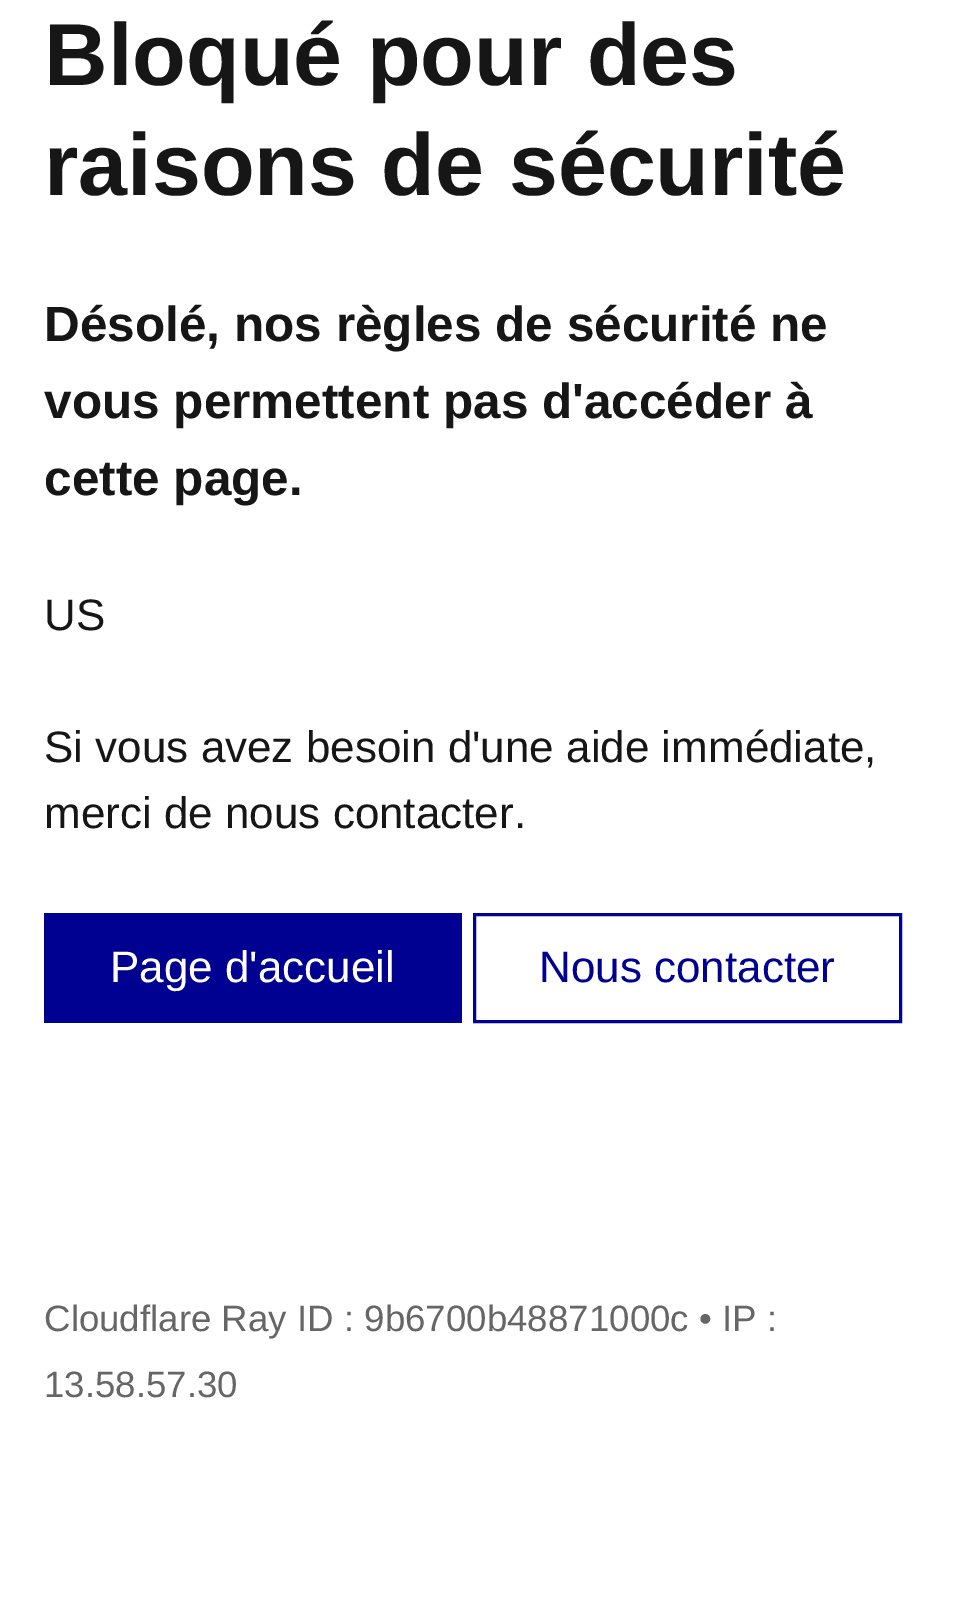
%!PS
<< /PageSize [971 1603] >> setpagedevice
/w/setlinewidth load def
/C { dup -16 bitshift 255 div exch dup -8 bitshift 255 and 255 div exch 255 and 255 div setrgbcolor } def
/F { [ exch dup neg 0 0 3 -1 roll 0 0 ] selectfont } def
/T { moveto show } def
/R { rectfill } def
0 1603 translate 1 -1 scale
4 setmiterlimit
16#FFFFFF C
0 0 971 1603 R
/LiberationSans-Bold 88 F
16#161616 C
(Bloqué pour des) 44 85 T
(raisons de sécurité) 44 195 T
/LiberationSans-Bold 49.5 F
(Désolé, nos règles de sécurité ne) 44 341 T
(vous permettent pas d'accéder à) 44 418 T
(cette page.) 44 495 T
/LiberationSans-Regular 44 F
(US) 44 630 T
(Si vous avez besoin d'une aide immédiate,) 44 762 T
(merci de nous contacter.) 44 828 T
16#000091 C
44 913 418 110 R
16#FFFFFF C
(Page d'accueil) 110 982 T
16#000091 C
3 w
474.5 914.5 426 107 rectstroke
(Nous contacter) 539 982 T
/LiberationSans-Regular 36.7 F
16#666666 C
(Cloudflare Ray ID : 9b6700b48871000c • IP :) 44 1331 T
(13.58.57.30) 44 1397 T
showpage
